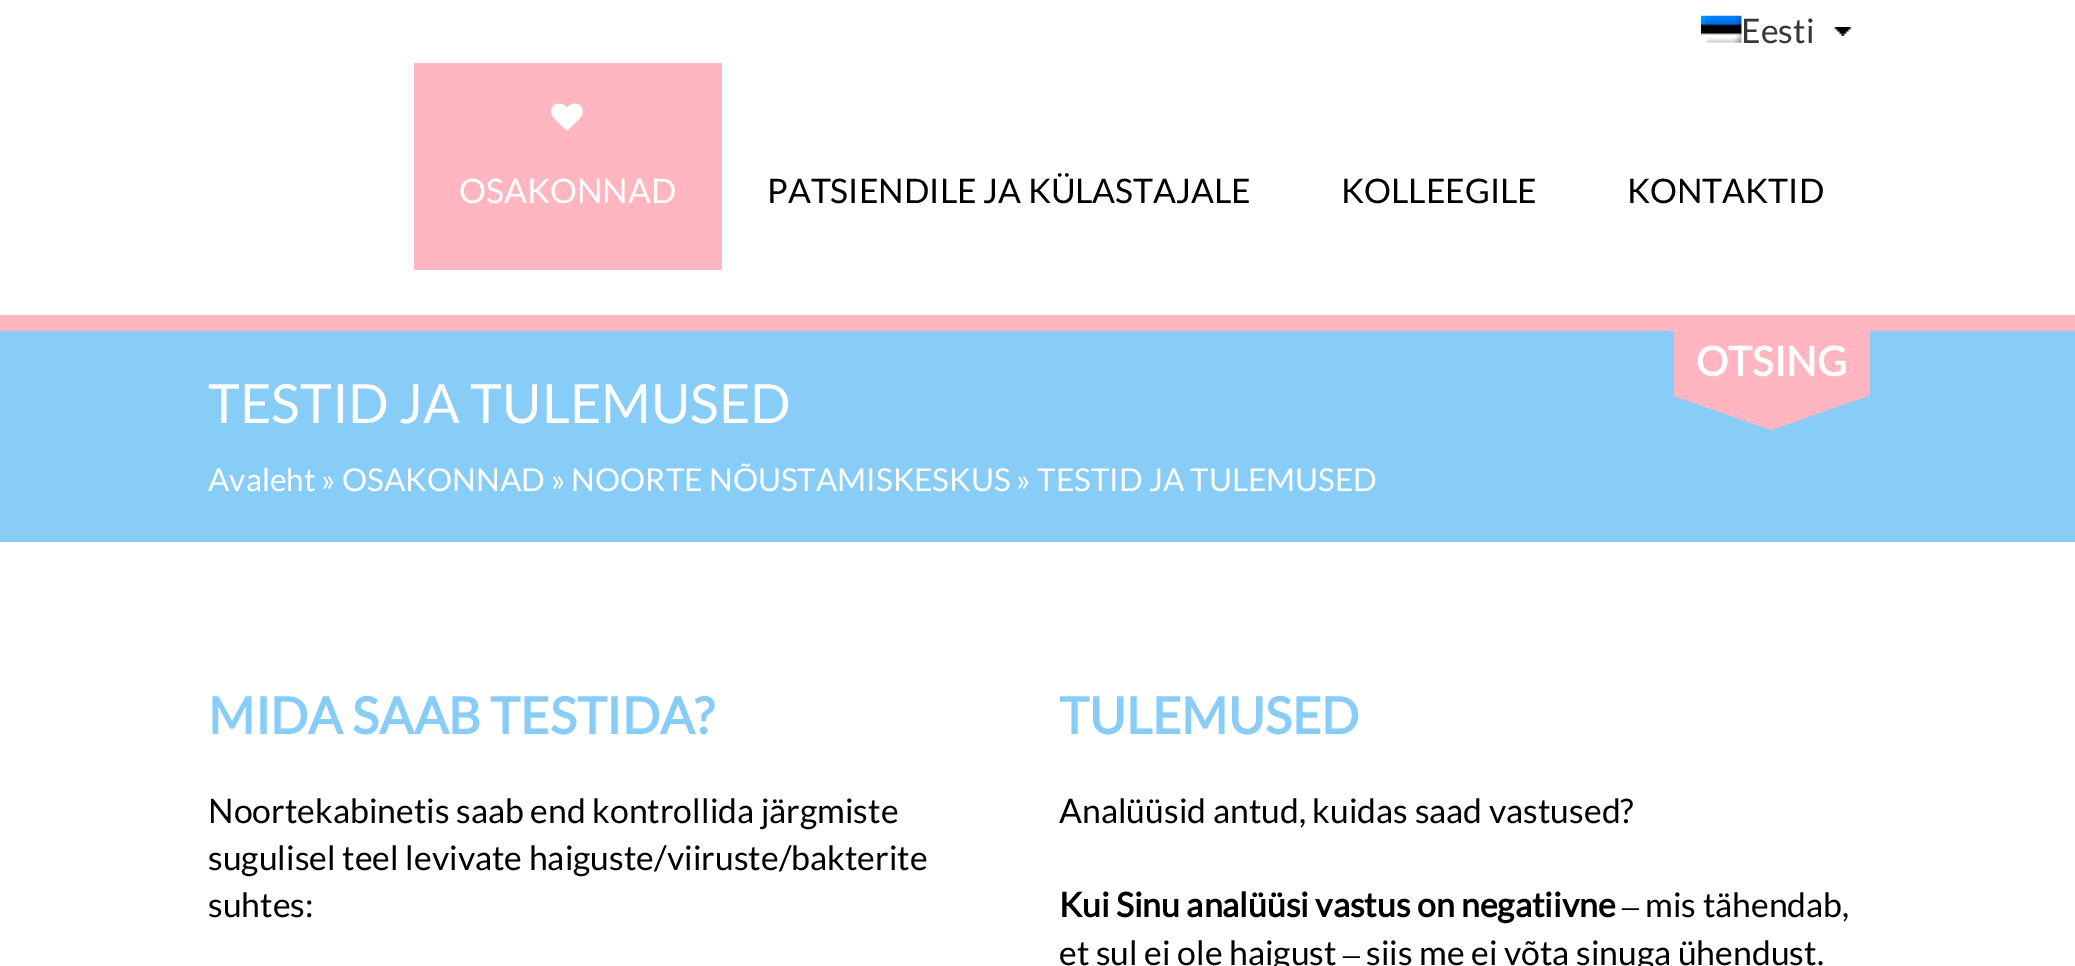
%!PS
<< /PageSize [2075 966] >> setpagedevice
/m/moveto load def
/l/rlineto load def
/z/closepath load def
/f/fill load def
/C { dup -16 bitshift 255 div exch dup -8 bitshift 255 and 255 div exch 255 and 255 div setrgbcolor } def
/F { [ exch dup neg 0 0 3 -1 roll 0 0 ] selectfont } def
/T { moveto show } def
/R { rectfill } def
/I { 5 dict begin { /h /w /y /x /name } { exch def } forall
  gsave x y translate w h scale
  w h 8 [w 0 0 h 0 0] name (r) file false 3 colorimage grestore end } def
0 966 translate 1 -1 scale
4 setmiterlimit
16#FFFFFF C
0 0 2075 966 R
(1.rgb) 1701 15 41 28 I
/Lato-Regular 33.75 F
16#373737 C
(Eesti) 1741 43 T
(2.rgb) 1834 27 18 9 I
16#FFB6C1 C
414 63 308 207 R
(3.rgb) 551 103 32 28 I
16#FFFFFF C
(OSAKONNAD) 459 203 T
16#000000 C
(PATSIENDILE JA KÜLASTAJALE) 767 203 T
(KOLLEEGILE) 1341 203 T
(KONTAKTID) 1627 203 T
16#87CDF8 C
0 331 2075 211 R
16#FFB6C1 C
1674 331 196 65 R
/Lato-Bold 40.5 F
16#FFFFFF C
(OTSING) 1696 376 T
16#FFB6C1 C
1674 396 m 194 0 l -97 34 l z f
0 315 2075 16 R
/Lato-Regular 54 F
16#FFFFFF C
(TESTID JA TULEMUSED) 208 423 T
/Lato-Regular 31.5 F
(Avaleht » OSAKONNAD » NOORTE NÕUSTAMISKESKUS » TESTID JA TULEMUSED) 208 491 T
/Lato-Bold 50.6 F
16#87CDF8 C
(MIDA SAAB TESTIDA?) 208 734 T
/Lato-Regular 33.75 F
16#000000 C
(Noortekabinetis saab end kontrollida järgmiste) 208 823 T
(sugulisel teel levivate haiguste/viiruste/bakterite) 208 870 T
(suhtes:) 208 917 T
/Lato-Bold 50.6 F
16#87CDF8 C
(TULEMUSED) 1059 734 T
/Lato-Regular 33.75 F
16#000000 C
(Analüüsid antud, kuidas saad vastused?) 1059 823 T
/Lato-Bold 33.75 F
(Kui Sinu analüüsi vastus on negatiivne) 1059 917 T
/LiberationSerif-Regular 33.75 F
(‒) 1622 917 T
/Lato-Regular 33.75 F
(mis tähendab,) 1645 917 T
(et sul ei ole haigust) 1059 965 T
/LiberationSerif-Regular 33.75 F
(‒) 1343 965 T
/Lato-Regular 33.75 F
(siis me ei võta sinuga ühendust.) 1366 965 T
showpage
